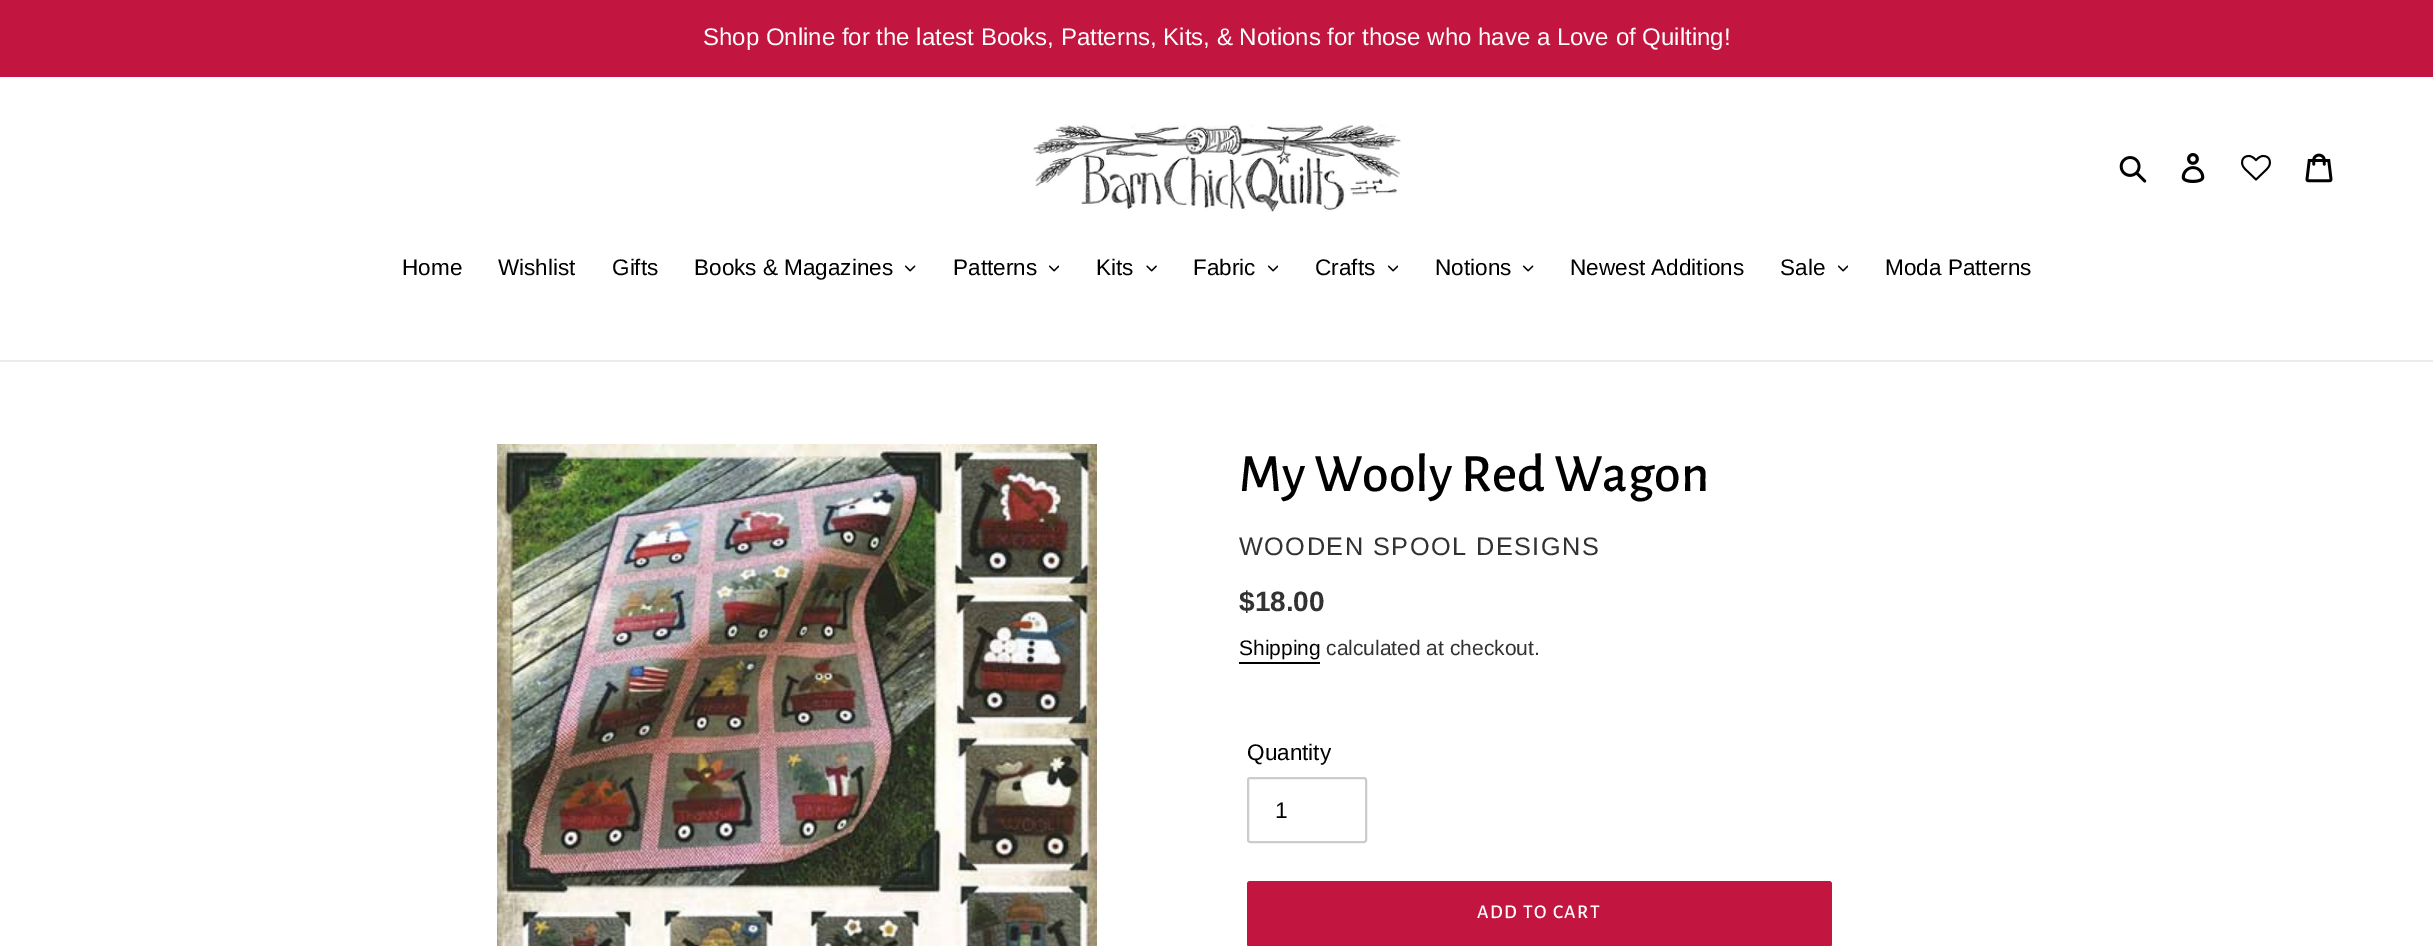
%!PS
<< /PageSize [2433 946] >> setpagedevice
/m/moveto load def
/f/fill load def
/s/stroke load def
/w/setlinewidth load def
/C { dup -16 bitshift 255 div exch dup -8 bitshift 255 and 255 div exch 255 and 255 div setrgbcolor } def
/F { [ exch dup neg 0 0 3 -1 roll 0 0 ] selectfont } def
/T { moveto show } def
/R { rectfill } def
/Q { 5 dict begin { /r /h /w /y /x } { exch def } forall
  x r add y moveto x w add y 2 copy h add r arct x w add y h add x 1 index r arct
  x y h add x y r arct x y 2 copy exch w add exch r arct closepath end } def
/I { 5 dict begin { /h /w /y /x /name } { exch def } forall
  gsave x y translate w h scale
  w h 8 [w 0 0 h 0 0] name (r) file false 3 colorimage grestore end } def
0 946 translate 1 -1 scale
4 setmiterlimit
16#FFFFFF C
0 0 2433 946 R
16#C2153F C
0 0 2433 77 R
/LiberationSans-Regular 24 F
16#FFFFFF C
(Shop Online for the latest Books, Patterns, Kits, & Notions for those who have a Love of Quilting!) 703 45 T
(1.rgb) 1033 124 368 89 I
(2.rgb) 2119 156 28 27 I
(3.rgb) 2181 153 24 30 I
(4.rgb) 2241 154 30 27 I
(5.rgb) 2305 153 28 30 I
16#EBEBEB C
0 360 2433 2 R
/LiberationSans-Regular 22.5 F
16#000000 C
(Home) 402 275 T
(Wishlist) 498 275 T
(Gifts) 612 275 T
(Books & Magazines) 694 275 T
(6.rgb) 905 265 11 7 I
(Patterns) 953 275 T
(7.rgb) 1049 265 10 7 I
(Kits) 1096 275 T
(8.rgb) 1146 265 11 7 I
(Fabric) 1193 275 T
(7.rgb) 1268 265 10 7 I
(Crafts) 1315 275 T
(7.rgb) 1388 265 10 7 I
(Notions) 1435 275 T
(6.rgb) 1523 265 11 7 I
(Newest Additions) 1570 275 T
(Sale) 1780 275 T
(7.rgb) 1838 265 10 7 I
(Moda Patterns) 1885 275 T
(9.rgb) 497 444 600 502 I
/AlegreyaSans-Medium 54 F
(My Wooly Red Wagon) 1239 491 T
/LiberationSans-Regular 25.25 F
16#333232 C
1239 555 m 1.5 0 (WOODEN SPOOL DESIGNS) ashow
/LiberationSans-Bold 28 F
($18.00) 1239 611 T
/LiberationSans-Regular 21 F
16#000000 C
(Shipping) 1239 655 T
1239 662 81 2 R
16#333232 C
(calculated at checkout.) 1326 655 T
/LiberationSans-Regular 22.5 F
16#000000 C
(Quantity) 1247 760 T
16#CCCCCC C
2 w
1248 778 118 64 2 Q s
16#000000 C
(1) 1275 818 T
16#C2153F C
1247 881 585 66 3 Q f
/AlegreyaSans-Medium 19.5 F
16#FFFFFF C
1477 918 m 1.5 0 (ADD TO CART) ashow
showpage
